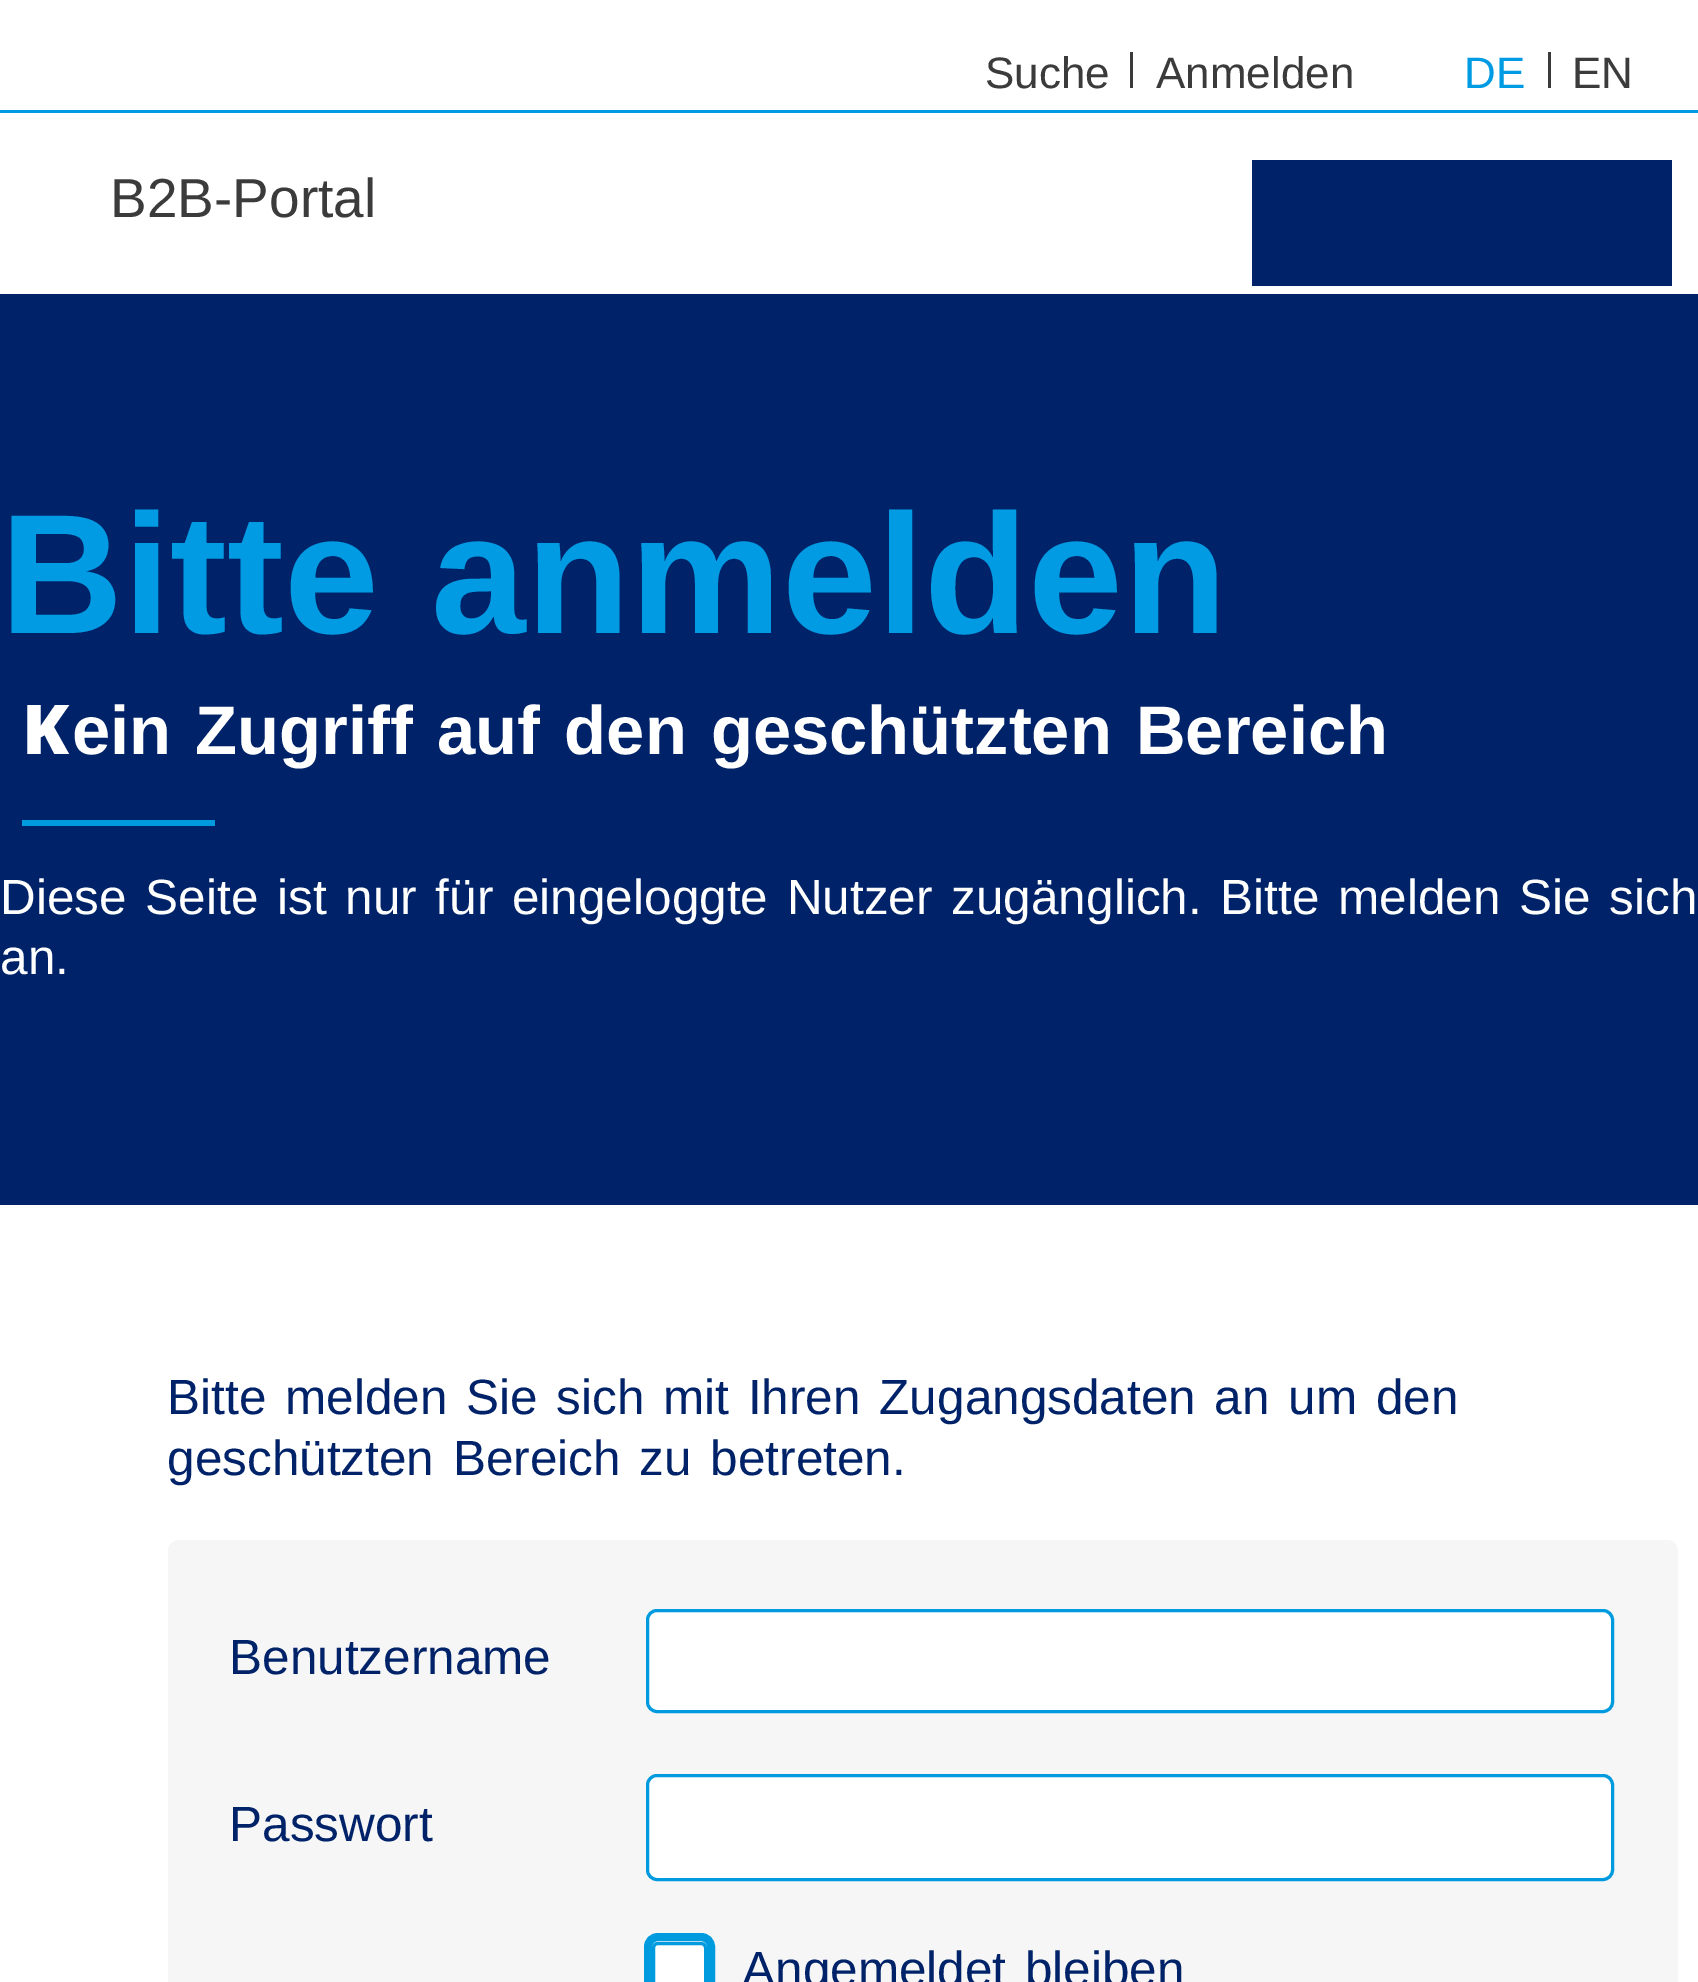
%!PS
<< /PageSize [1698 1982] >> setpagedevice
/m/moveto load def
/f/fill load def
/s/stroke load def
/q/gsave load def
/Q_/grestore load def
/w/setlinewidth load def
/C { dup -16 bitshift 255 div exch dup -8 bitshift 255 and 255 div exch 255 and 255 div setrgbcolor } def
/F { [ exch dup neg 0 0 3 -1 roll 0 0 ] selectfont } def
/T { moveto show } def
/R { rectfill } def
/Q { 5 dict begin { /r /h /w /y /x } { exch def } forall
  x r add y moveto x w add y 2 copy h add r arct x w add y h add x 1 index r arct
  x y h add x y r arct x y 2 copy exch w add exch r arct closepath end } def
0 1982 translate 1 -1 scale
4 setmiterlimit
16#FFFFFF C
0 0 1698 1982 R
/LiberationSans-Regular 44 F
16#3B3B3B C
(Suche) 985 88 T
1130 52 3 36 R
(Anmelden) 1156 88 T
16#009BE2 C
(DE) 1464 88 T
16#3B3B3B C
1548 52 3 36 R
(EN) 1572 88 T
16#009BE2 C
0 110 1698 3 R
/LiberationSans-Regular 55 F
16#3B3B3B C
(B2B-Portal) 110 217 T
16#002269 C
1252 160 420 126 R
0 294 1698 911 R
/LiberationSans-Bold 170.5 F
16#009BE2 C
0 633 m 5 0 32 (Bitte anmelden) widthshow
/NotoSans-Black 68.75 F
16#FFFFFF C
(K) 22 754 T
/LiberationSans-Bold 68.75 F
72 754 m 5 0 32 (ein Zugriff auf den geschützten Bereich) widthshow
16#009BDF C
22 820 193 6 R
/LiberationSans-Regular 49.5 F
16#FFFFFF C
0 914 m 5 0 32 (Diese Seite ist nur für eingeloggte Nutzer zugänglich. Bitte melden Sie sich) widthshow
(an.) 0 974 T
16#002269 C
167 1414 m 5 0 32 (Bitte melden Sie sich mit Ihren Zugangsdaten an um den) widthshow
167 1475 m 5 0 32 (geschützten Bereich zu betreten.) widthshow
16#F6F6F6 C
168 1540 1510 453 11 Q f
16#002269 C
(Benutzername) 229 1674 T
16#FFFFFF C
647.5 1610.5 965 101 9.5 Q q f Q_
16#009BDF C
3 w
s
16#002269 C
(Passwort) 229 1841 T
16#FFFFFF C
647.5 1775.5 965 104 9.5 Q q f Q_
16#009BDF C
s
8 w
648 1937 63 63 10 Q s
16#FFFFFF C
653.5 1943.5 52 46 4.5 Q q f Q_
16#009BDF C
3 w
s
16#002269 C
742 1986 m 5 0 32 (Angemeldet bleiben) widthshow
showpage
